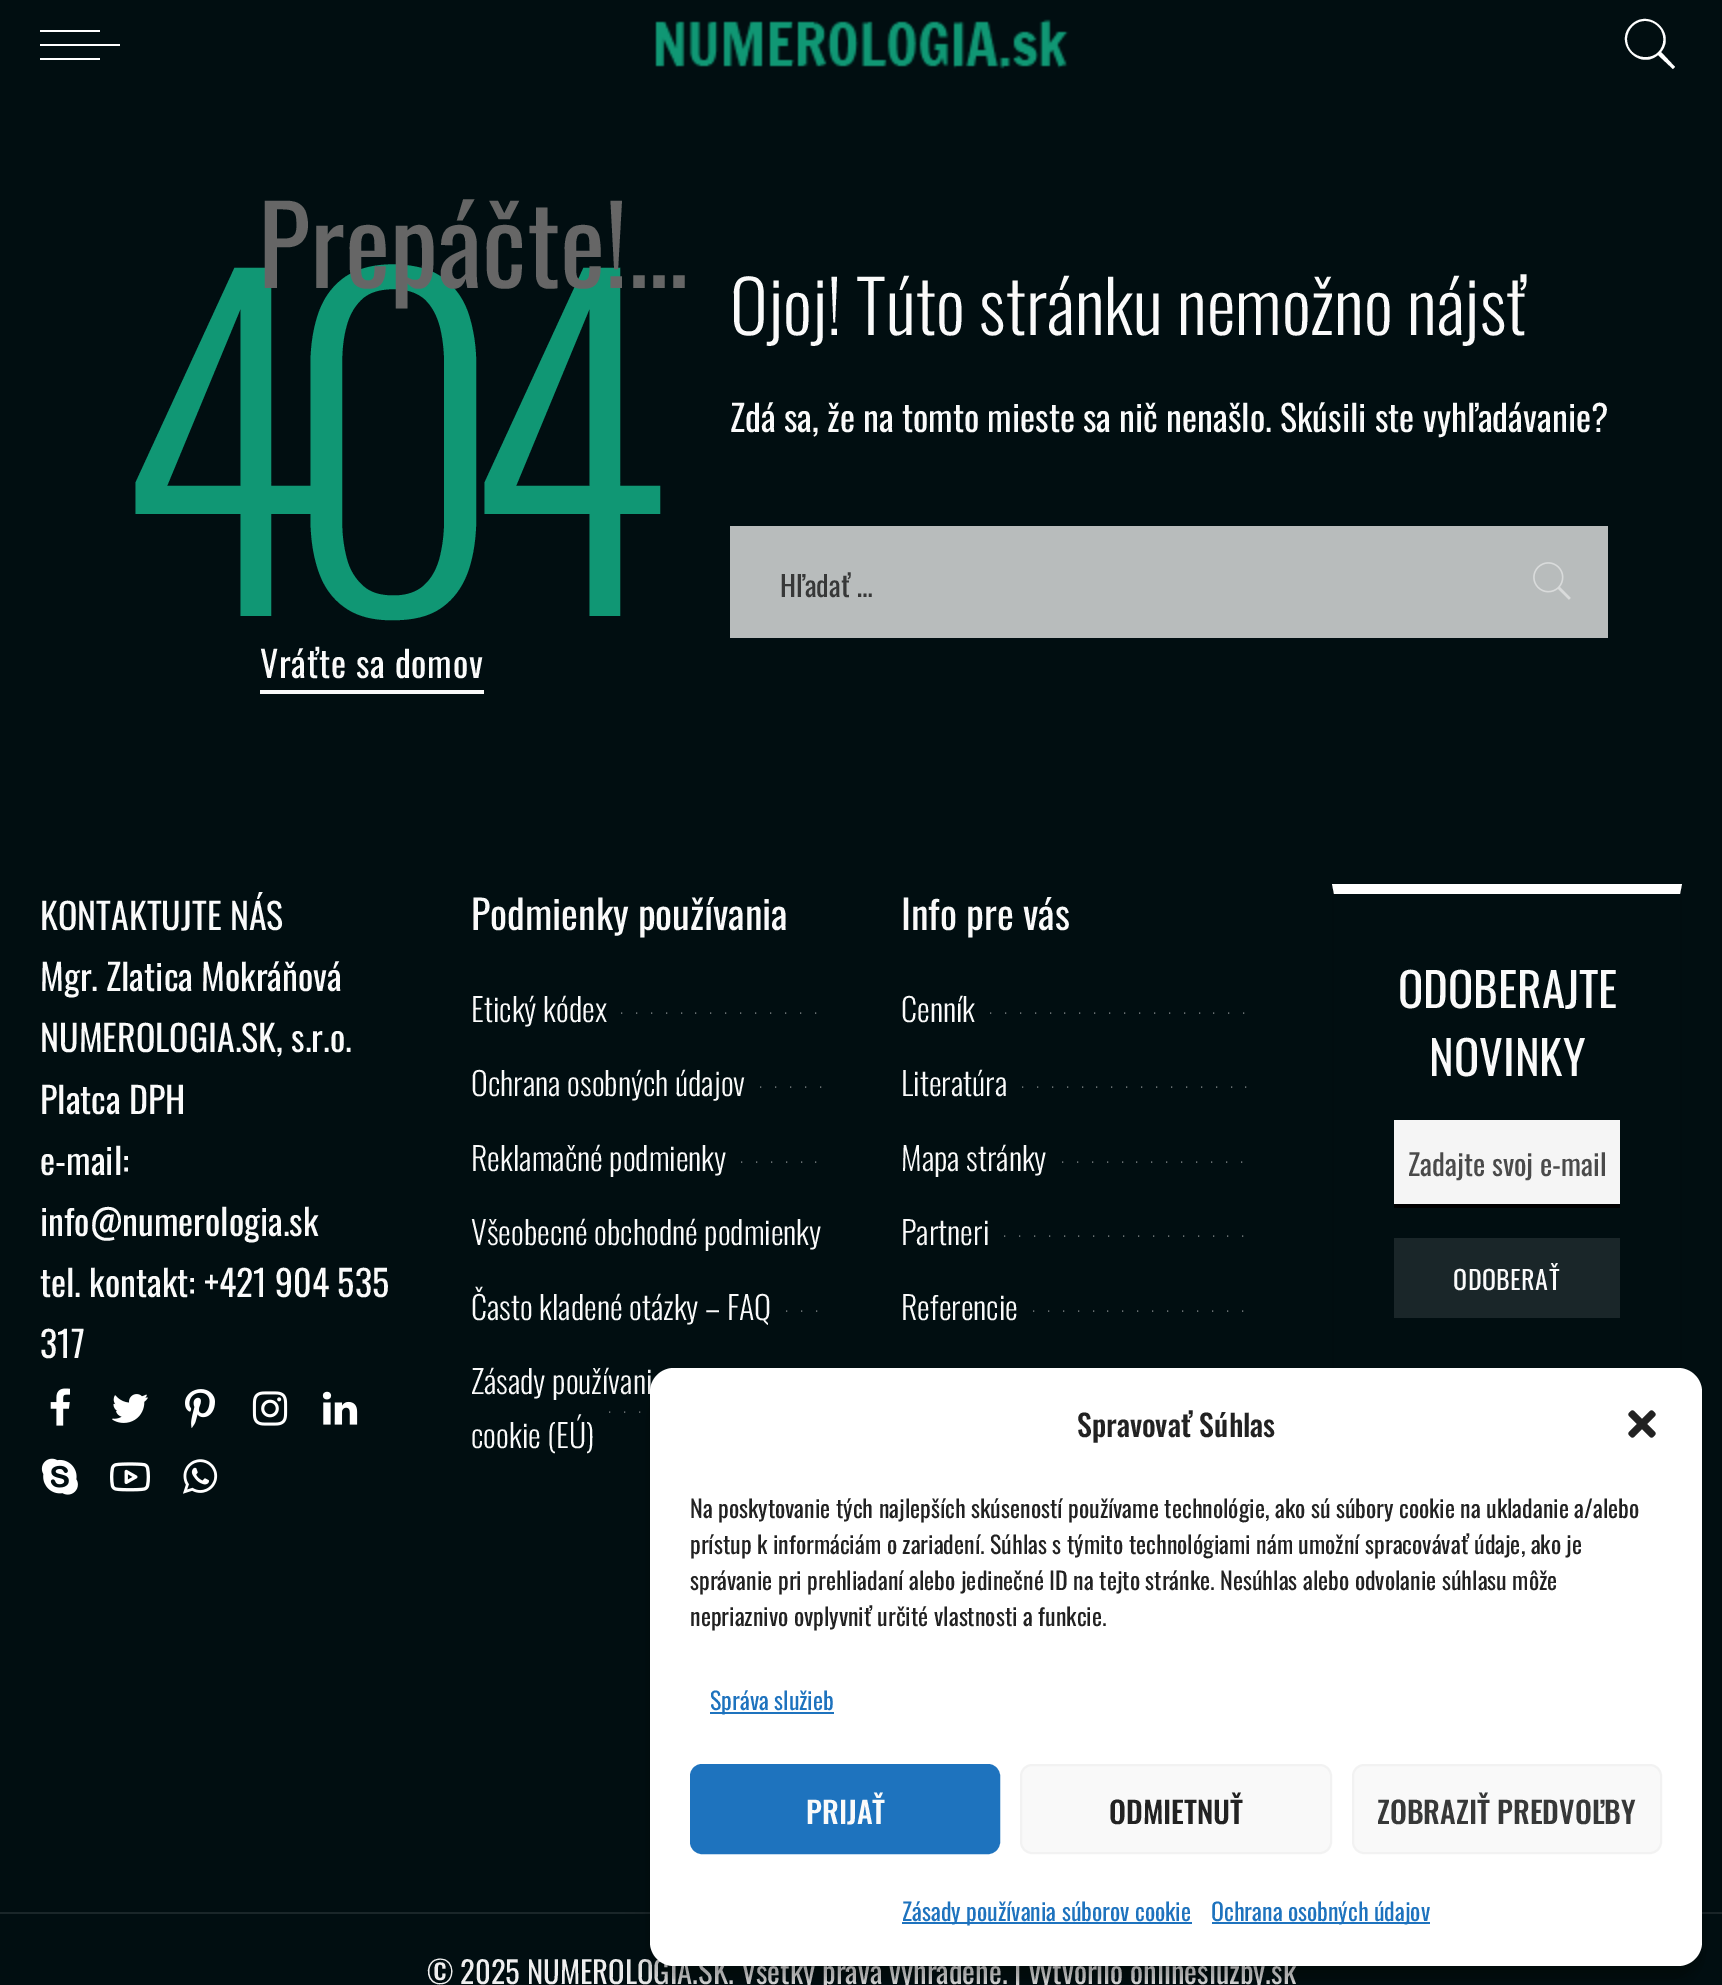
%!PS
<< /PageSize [1722 1985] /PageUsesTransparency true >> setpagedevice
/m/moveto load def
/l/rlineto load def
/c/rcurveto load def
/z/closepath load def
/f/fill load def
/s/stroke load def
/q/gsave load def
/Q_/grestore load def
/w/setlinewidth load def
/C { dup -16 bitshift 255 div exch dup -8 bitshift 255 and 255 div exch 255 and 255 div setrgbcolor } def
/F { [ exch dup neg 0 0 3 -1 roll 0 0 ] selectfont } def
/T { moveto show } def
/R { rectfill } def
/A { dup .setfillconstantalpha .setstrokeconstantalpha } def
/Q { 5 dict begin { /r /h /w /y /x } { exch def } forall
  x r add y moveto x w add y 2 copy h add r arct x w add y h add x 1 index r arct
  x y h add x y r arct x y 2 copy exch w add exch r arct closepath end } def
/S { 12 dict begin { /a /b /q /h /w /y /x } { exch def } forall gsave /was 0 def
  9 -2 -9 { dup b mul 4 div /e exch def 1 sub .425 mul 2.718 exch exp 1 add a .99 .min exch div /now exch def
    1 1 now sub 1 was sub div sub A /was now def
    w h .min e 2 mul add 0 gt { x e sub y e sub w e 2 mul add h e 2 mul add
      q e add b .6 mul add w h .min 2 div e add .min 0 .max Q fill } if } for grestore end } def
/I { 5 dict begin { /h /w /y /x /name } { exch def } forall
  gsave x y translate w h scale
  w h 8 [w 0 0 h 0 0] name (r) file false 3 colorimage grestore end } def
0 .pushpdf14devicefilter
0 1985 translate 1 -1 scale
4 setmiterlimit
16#010E11 C
0 0 1722 1985 R
16#FFFFFF C
40 44 80 2 R
40 30 60 2 R
40 58 60 2 R
(1.rgb) 655 19 414 50 I
1675 67 m -14 -15 l 16 -19 -12 -45 -30 -27 c -18 18 8 46 27 30 c 15 14 l z 1627 39 m 0 -10 9 -19 19 -18 c 6 0 12 4 15 9 c 2 4 3 8 2 13 c -4 21 -36 18 -36 -4 c z f
/Oswald-Light 432 F
16#109774 C
114 616 m -43 0 (404) ashow
/Oswald-Regular 108 F
16#666666 C
(Prepáčte!...) 258 288 T
16#FAFAFA C
260 690 224 4 R
/Oswald-Regular 36 F
260 678 m .75 0 (Vráťte sa domov) ashow
/Oswald-Light 72 F
(Ojoj! Túto stránku nemožno nájsť) 730 335 T
/Oswald-Regular 36 F
(Zdá sa, že na tomto mieste sa nič nenašlo. Skúsili ste vyhľadávanie?) 730 432 T
16#B8BCBC C
730 526 878 112 R
/Oswald-Regular 28.5 F
16#373838 C
(Hľadať …) 780 597 T
(2.rgb) 1533 562 38 38 I
/Oswald-Regular 36 F
16#FAFAFA C
(KONTAKTUJTE NÁS) 40 930 T
(Mgr. Zlatica Mokráňová) 40 991 T
(NUMEROLOGIA.SK, s.r.o.) 40 1052 T
(Platca DPH) 40 1114 T
(e-mail:) 40 1175 T
(info@numerologia.sk) 40 1236 T
(tel. kontakt: +421 904 535) 40 1297 T
(317) 40 1358 T
(3.rgb) 50 1388 20 38 I
(4.rgb) 112 1394 36 29 I
(5.rgb) 185 1389 30 39 I
(6.rgb) 252 1391 36 35 I
(7.rgb) 322 1391 36 34 I
(8.rgb) 41 1458 37 37 I
(9.rgb) 110 1462 40 30 I
(10.rgb) 183 1459 35 35 I
/Oswald-Regular 40 F
(Podmienky používania) 471 930 T
/Oswald-Light 32 F
(Etický kódex) 471 1022 T
/Oswald-Light 16 F
16#676E70 C
620 1014 m 12 0 (..............) ashow
/Oswald-Light 32 F
16#FAFAFA C
(Ochrana osobných údajov) 471 1096 T
/Oswald-Light 16 F
16#676E70 C
759 1088 m 12 0 (.....) ashow
/Oswald-Light 32 F
16#FAFAFA C
(Reklamačné podmienky) 471 1171 T
/Oswald-Light 16 F
16#676E70 C
740 1163 m 12 0 (......) ashow
/Oswald-Light 32 F
16#FAFAFA C
(Všeobecné obchodné podmienky) 471 1245 T
(Často kladené otázky – FAQ) 471 1320 T
/Oswald-Light 16 F
16#676E70 C
785 1312 m 12 0 (...) ashow
/Oswald-Light 32 F
16#FAFAFA C
(Zásady používani) 471 1394 T
/Oswald-Light 16 F
16#676E70 C
608 1413 m 12 0 (...) ashow
/Oswald-Light 32 F
16#FAFAFA C
(cookie \(EÚ\)) 471 1448 T
/Oswald-Regular 40 F
(Info pre vás) 901 930 T
/Oswald-Light 32 F
(Cenník) 901 1022 T
/Oswald-Light 16 F
16#676E70 C
989 1014 m 12 0 (..................) ashow
/Oswald-Light 32 F
16#FAFAFA C
(Literatúra) 901 1096 T
/Oswald-Light 16 F
16#676E70 C
1021 1088 m 12 0 (................) ashow
/Oswald-Light 32 F
16#FAFAFA C
(Mapa stránky) 901 1171 T
/Oswald-Light 16 F
16#676E70 C
1061 1163 m 12 0 (.............) ashow
/Oswald-Light 32 F
16#FAFAFA C
(Partneri) 901 1245 T
/Oswald-Light 16 F
16#676E70 C
1003 1237 m 12 0 (.................) ashow
/Oswald-Light 32 F
16#FAFAFA C
(Referencie) 901 1320 T
/Oswald-Light 16 F
16#676E70 C
1032 1312 m 12 0 (...............) ashow
16#FFFFFF C
1332 884 m 350 0 l -2 10 l -346 0 l z f
0.07 A
16#000000 C
1682 884 m 0 496 l -2 -2 l 0 -484 l z f
1332 1380 m 0 -496 l 2 10 l 0 484 l z f
/Oswald-Regular 47 F
1 A
16#FAFAFA C
(ODOBERAJTE) 1398 1008 T
(NOVINKY) 1429 1076 T
16#F5F5F5 C
1394 1120 226 84 R
16#000000 C
1394 1204 226 4 R
/Oswald-Regular 29.25 F
16#4A4A4A C
(Zadajte svoj e-mail) 1408 1176 T
16#1A2629 C
1394 1238 226 80 R
/Oswald-Regular 26 F
16#FAFAFA C
1453 1290 m .5 0 (ODOBERAŤ) ashow
16#1A2629 C
0 1912 1722 2 R
/Oswald-Regular 30.6 F
16#EFEFEF C
(© 2025 NUMEROLOGIA.SK. Všetky práva vyhradené. | vytvorilo onlinesluzby.sk) 427 1984 T
16#000000 C
650 1380 1052 598 24 6 .23 S
650 1388 1052 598 24 20 .19 S
16#FFFFFF C
650 1368 1052 598 24 Q f
/Oswald-Medium 30 F
16#222222 C
(Spravovať Súhlas) 1077 1437 T
(11.rgb) 1628 1410 28 28 I
/Oswald-Regular 24 F
(Na poskytovanie tých najlepších skúseností používame technológie, ako sú súbory cookie na ukladanie a/alebo) 690 1518 T
(prístup k informáciám o zariadení. Súhlas s týmito technológiami nám umožní spracovávať údaje, ako je) 690 1554 T
(správanie pri prehliadaní alebo jedinečné ID na tejto stránke. Nesúhlas alebo odvolanie súhlasu môže) 690 1590 T
(nepriaznivo ovplyvniť určité vlastnosti a funkcie.) 690 1626 T
16#1E73BE C
710 1712 124 2 R
(Správa služieb) 710 1710 T
691 1765 308 88 11 Q q f Q_
2 w
s
/Oswald-Medium 30 F
16#FAFAFA C
(PRIJAŤ) 806 1824 T
16#F9F9F9 C
1021 1765 310 88 11 Q q f Q_
16#F2F2F2 C
s
16#222222 C
(ODMIETNUŤ) 1109 1824 T
16#F9F9F9 C
1353 1765 308 88 11 Q q f Q_
16#F2F2F2 C
s
16#373838 C
(ZOBRAZIŤ PREDVOĽBY) 1377 1824 T
16#1E73BE C
902 1922 290 2 R
/Oswald-Regular 24 F
(Zásady používania súborov cookie) 902 1921 T
1212 1922 218 2 R
(Ochrana osobných údajov) 1211 1921 T
.poppdf14devicefilter showpage
